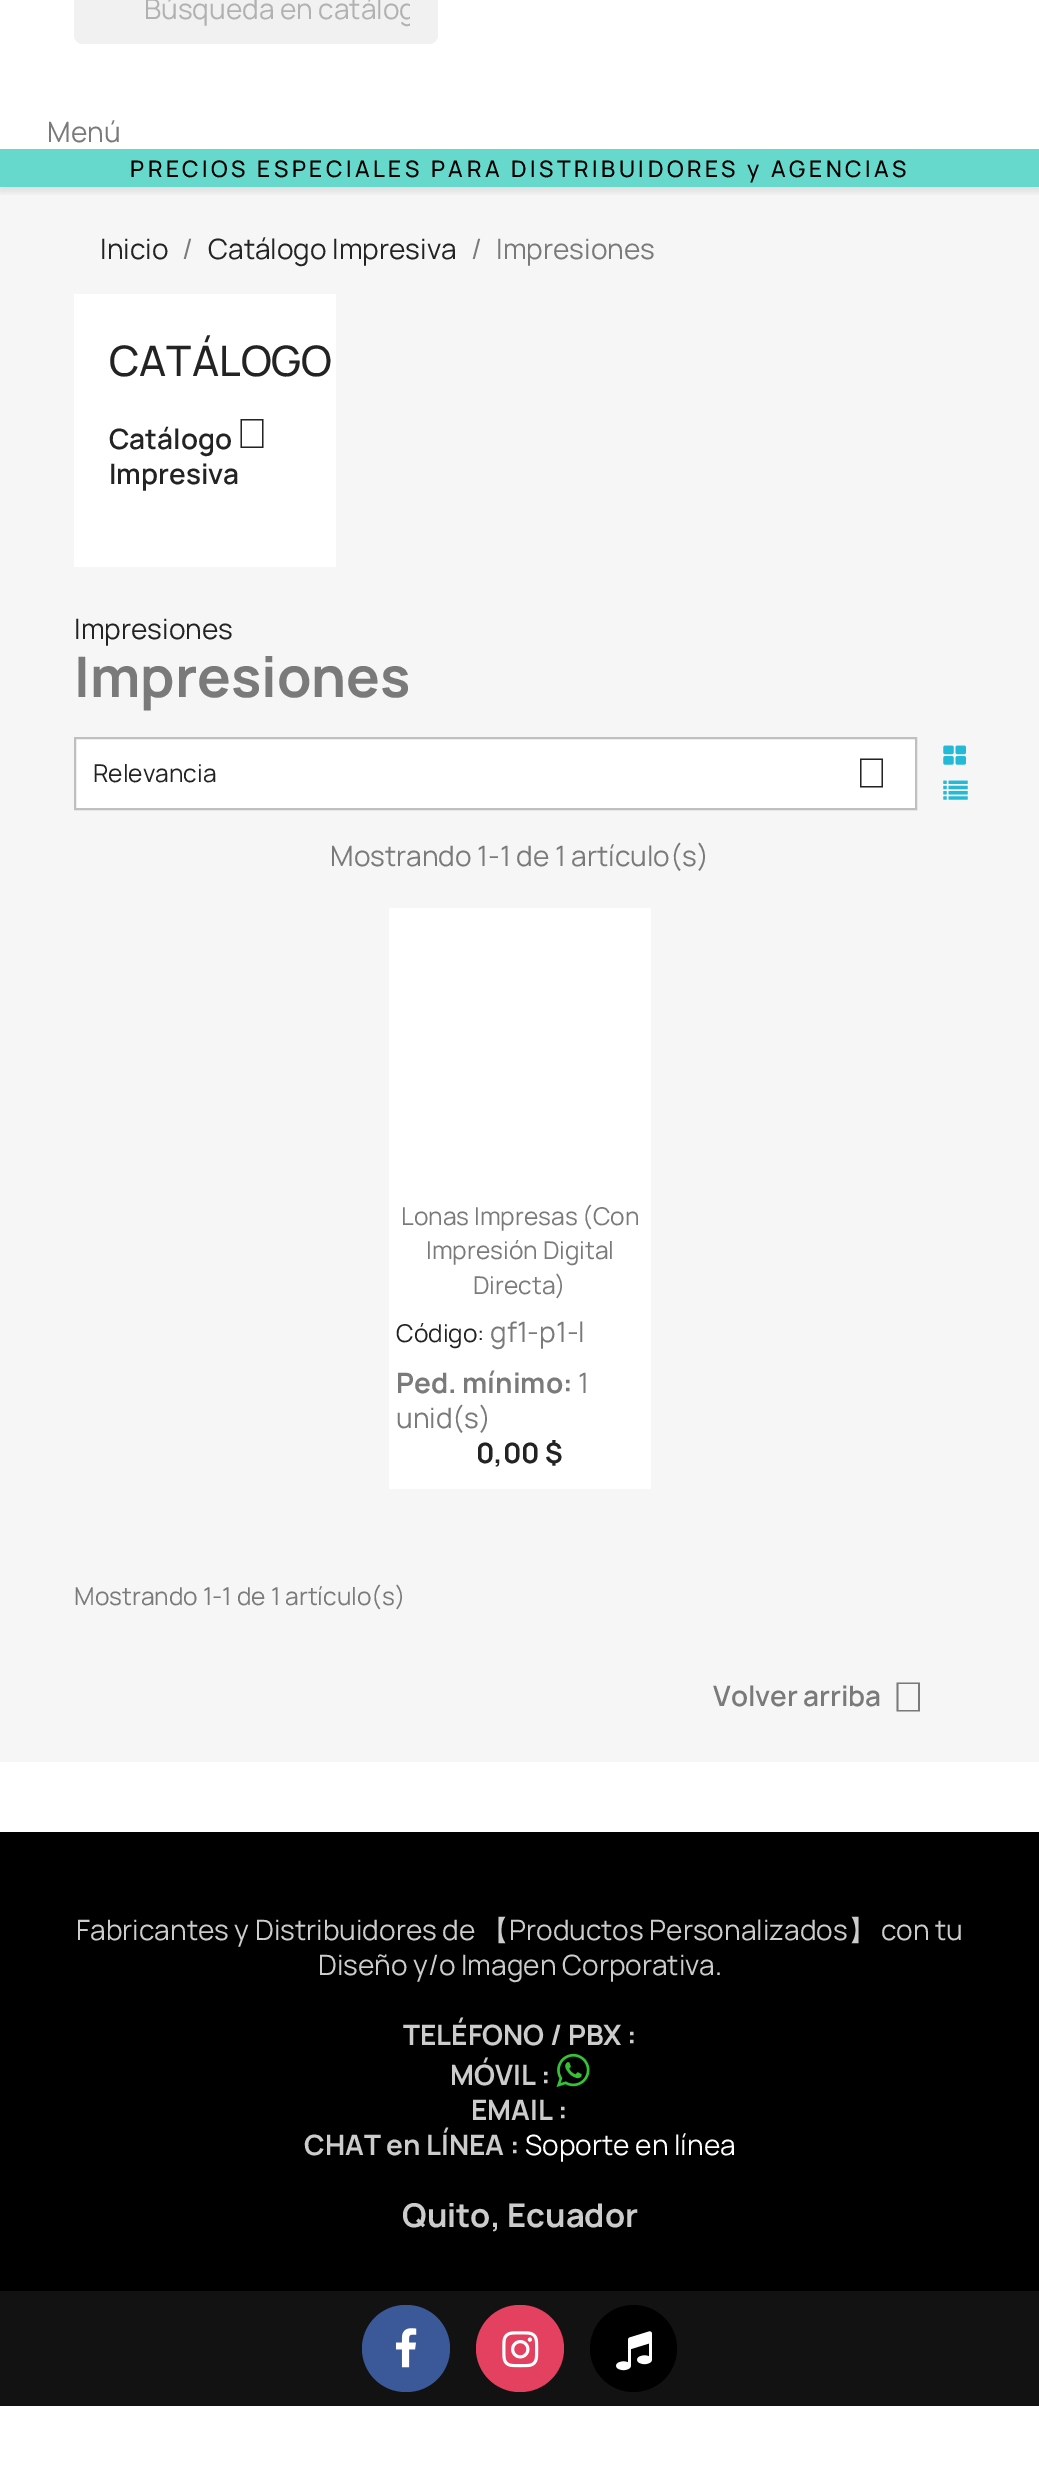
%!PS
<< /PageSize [1039 2476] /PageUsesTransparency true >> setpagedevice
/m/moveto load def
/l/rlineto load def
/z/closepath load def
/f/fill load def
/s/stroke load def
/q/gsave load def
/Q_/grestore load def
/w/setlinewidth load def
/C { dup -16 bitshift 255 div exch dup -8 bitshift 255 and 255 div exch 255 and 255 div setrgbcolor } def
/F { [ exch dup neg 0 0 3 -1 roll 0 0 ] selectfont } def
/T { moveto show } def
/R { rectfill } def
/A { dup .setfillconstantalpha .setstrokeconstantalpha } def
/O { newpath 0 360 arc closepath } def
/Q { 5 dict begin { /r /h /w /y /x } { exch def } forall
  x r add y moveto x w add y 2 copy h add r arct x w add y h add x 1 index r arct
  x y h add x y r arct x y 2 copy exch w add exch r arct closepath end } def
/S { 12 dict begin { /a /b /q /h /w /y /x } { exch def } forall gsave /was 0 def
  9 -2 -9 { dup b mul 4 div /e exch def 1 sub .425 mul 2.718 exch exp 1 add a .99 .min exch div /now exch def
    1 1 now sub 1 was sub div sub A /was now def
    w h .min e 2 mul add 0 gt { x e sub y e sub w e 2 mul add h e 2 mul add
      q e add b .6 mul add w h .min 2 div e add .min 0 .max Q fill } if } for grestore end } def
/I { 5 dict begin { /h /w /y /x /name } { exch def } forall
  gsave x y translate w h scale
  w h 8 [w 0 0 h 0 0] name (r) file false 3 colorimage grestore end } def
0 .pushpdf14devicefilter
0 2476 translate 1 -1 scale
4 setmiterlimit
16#FFFFFF C
0 0 1039 2476 R
16#F6F6F6 C
0 187 1039 1575 R
q
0 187 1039 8 rectclip
16#000000 C
0 -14 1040 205 0 4.5 .11 S
Q_
16#F1F1F1 C
74 -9 364 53 9 Q f
q
144 0 266 28 rectclip
/Manrope-Regular 28 F
16#B1B1B1 C
(Búsqueda en catálog) 144 19 T
Q_
/Manrope-Regular 28 F
16#7A7A7A C
(Menú) 47 142 T
16#66D9CC C
0 149 1039 38 R
/Manrope-Medium 22.75 F
16#000000 C
130 177 m 3.5 0 (PRECIOS ESPECIALES PARA DISTRIBUIDORES y AGENCIAS) ashow
/Manrope-Regular 28 F
16#232323 C
(Inicio) 100 259 T
16#7A7A7A C
(/) 182 259 T
16#232323 C
(Catálogo Impresiva) 208 259 T
16#7A7A7A C
(/) 471 259 T
(Impresiones) 496 259 T
16#FFFFFF C
74 294 262 273 R
/Manrope-Medium 42 F
16#232323 C
(CATÁLOGO) 109 376 T
/Manrope-SemiBold 28 F
(Catálogo) 109 449 T
(Impresiva) 109 484 T
240.5 419 m 23 0 l 0 29 l -23 0 l z 242 420.5 m 0 26 l 20 0 l 0 -26 l z f
/Manrope-Regular 28 F
(Impresiones) 74 639 T
/Manrope-Bold 56 F
16#7A7A7A C
(Impresiones) 74 697 T
16#FFFFFF C
75 738 m 841 0 l 0 71 l -841 0 l z q f Q_
16#BFBFBF C
2 w
s
/Manrope-Regular 24.5 F
16#232323 C
(Relevancia) 93 782 T
860 758.5 m 23 0 l 0 29 l -23 0 l z 861.5 760 m 0 26 l 20 0 l 0 -26 l z f
(1.rgb) 943 745 23 20 I
(2.rgb) 943 780 25 20 I
/Manrope-Regular 28 F
16#7A7A7A C
(Mostrando 1-1 de 1 artículo\(s\)) 330 866 T
16#FFFFFF C
389 908 262 581 R
/Manrope-Regular 24.5 F
16#7A7A7A C
(Lonas Impresas \(Con) 401 1225 T
(Impresión Digital) 426 1259 T
(Directa\)) 473 1294 T
16#232323 C
(Código:) 396 1342 T
/Manrope-Regular 28 F
16#7A7A7A C
(gf1-p1-l) 490 1342 T
/Manrope-Bold 28 F
(Ped. mínimo:) 396 1393 T
/Manrope-Regular 28 F
(1) 578 1393 T
(unid\(s\)) 396 1428 T
/Manrope-Bold 28 F
16#232323 C
(0,00 $) 476 1463 T
/Manrope-Regular 24.5 F
16#7A7A7A C
(Mostrando 1-1 de 1 artículo\(s\)) 74 1605 T
/Manrope-SemiBold 28 F
(Volver arriba) 713 1706 T
896.5 1682.5 m 23.5 0 l 0 29 l -23.5 0 l z 898.5 1684 m 0 26 l 19.5 0 l 0 -26 l z f
16#000000 C
0 1832 1039 459 R
/Manrope-Regular 28 F
16#CCCCCC C
(Fabricantes y Distribuidores de) 76 1940 T
/WenQuanYiZenHei-Medium 28 F
(【) 481 1940 T
/Manrope-Regular 28 F
(Productos Personalizados) 509 1940 T
/WenQuanYiZenHei-Medium 28 F
(】) 848 1940 T
/Manrope-Regular 28 F
(con tu) 881 1940 T
(Diseño y/o Imagen Corporativa.) 318 1975 T
/Manrope-Bold 28 F
(TELÉFONO / PBX :) 403 2045 T
(MÓVIL :) 450 2085 T
(3.rgb) 556 2053 34 35 I
(EMAIL :) 471 2120 T
(CHAT en LÍNEA :) 304 2155 T
/Manrope-Regular 28 F
16#FFFFFF C
(Soporte en línea) 525 2155 T
/Manrope-Bold 32.75 F
16#CCCCCC C
(Quito, Ecuador) 402 2227 T
16#121212 C
0 2291 1039 115 R
16#3B5998 C
362 2305 88 87 43.5 Q f
(4.rgb) 395 2328 22 40 I
16#E4405F C
476 2305 88 87 43.5 Q f
(5.rgb) 502 2331 37 37 I
16#000000 C
633.5 2348.5 43.5 O f
(6.rgb) 616 2331 36 40 I
.poppdf14devicefilter showpage
